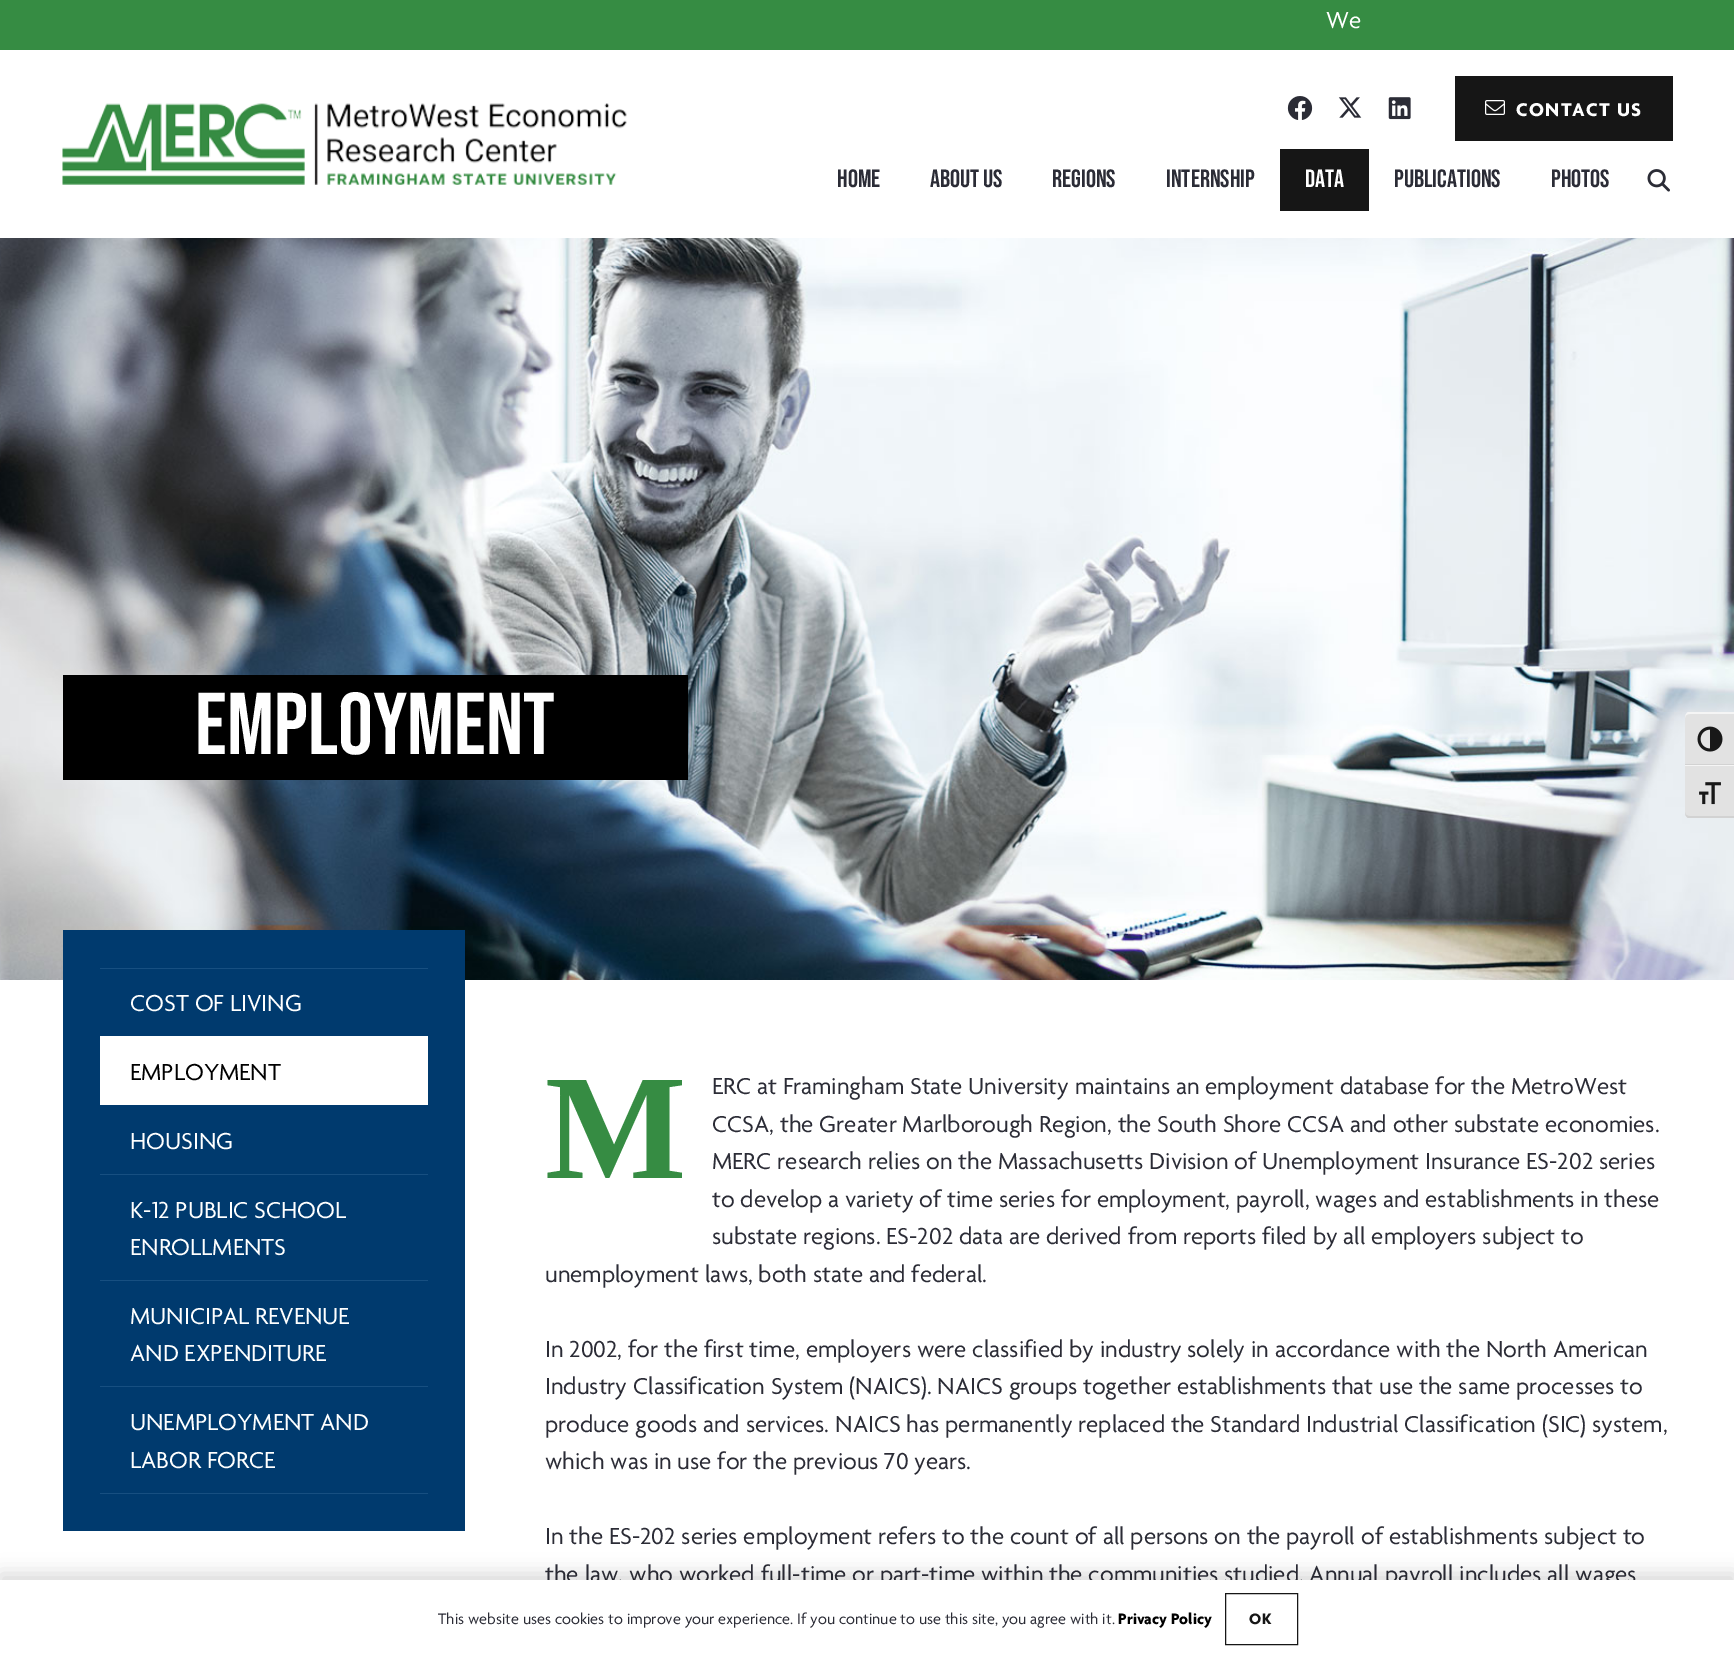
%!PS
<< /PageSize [1734 1657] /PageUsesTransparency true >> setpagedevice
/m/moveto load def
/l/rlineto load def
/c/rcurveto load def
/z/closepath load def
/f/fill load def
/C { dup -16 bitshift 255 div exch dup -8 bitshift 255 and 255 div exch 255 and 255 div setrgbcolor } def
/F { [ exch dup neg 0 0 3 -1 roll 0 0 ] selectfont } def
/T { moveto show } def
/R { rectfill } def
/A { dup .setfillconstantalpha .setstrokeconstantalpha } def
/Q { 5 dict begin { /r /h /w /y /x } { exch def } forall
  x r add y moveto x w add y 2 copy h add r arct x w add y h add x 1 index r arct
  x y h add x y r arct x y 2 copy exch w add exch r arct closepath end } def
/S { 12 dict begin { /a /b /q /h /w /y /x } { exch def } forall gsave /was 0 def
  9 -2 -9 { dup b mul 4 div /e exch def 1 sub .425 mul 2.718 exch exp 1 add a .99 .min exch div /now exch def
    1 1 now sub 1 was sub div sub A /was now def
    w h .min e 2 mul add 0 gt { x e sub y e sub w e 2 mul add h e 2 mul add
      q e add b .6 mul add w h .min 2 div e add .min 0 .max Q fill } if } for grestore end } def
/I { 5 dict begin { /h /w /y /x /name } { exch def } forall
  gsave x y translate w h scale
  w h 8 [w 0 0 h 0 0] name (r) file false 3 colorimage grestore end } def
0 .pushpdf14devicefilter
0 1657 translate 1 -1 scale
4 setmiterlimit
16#FFFFFF C
0 0 1734 1657 R
16#368C43 C
0 0 1734 50 R
/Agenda-Regular 25 F
16#FFFFFF C
(We) 1326 28 T
(1.rgb) 62 103 565 82 I
(2.rgb) 1287 96 26 24 I
(3.rgb) 1338 97 24 21 I
(4.rgb) 1388 97 23 23 I
16#161616 C
1455 76 218 65 R
(5.rgb) 1485 100 20 15 I
/Agenda-Bold 20 F
16#FFFFFF C
1516 116 m 1.25 0 (CONTACT US) ashow
/BebasNeue-Regular 25 F
16#2B2C36 C
(HOME) 837 187 T
(ABOUT US) 930 187 T
(REGIONS) 1052 187 T
(INTERNSHIP) 1166 187 T
16#161616 C
1280 149 89 62 R
16#FFFFFF C
(DATA) 1305 187 T
16#2B2C36 C
(PUBLICATIONS) 1394 187 T
(PHOTOS) 1551 187 T
(6.rgb) 1647 169 23 23 I
(7.rgb) 0 238 1734 742 I
16#000000 C
63 675 625 105 R
/BebasNeue-Regular 87.5 F
16#FFFFFF C
(Employment) 195 754 T
16#003A6E C
63 930 402 601 R
16#174F81 C
100 1493 328 1 R
100 968 328 1 R
/Agenda-Regular 25 F
16#FFFFFF C
(COST OF LIVING) 130 1011 T
100 1036 328 69 R
16#000000 C
(EMPLOYMENT) 130 1080 T
16#FFFFFF C
(HOUSING) 130 1149 T
16#174F81 C
100 1174 328 1 R
16#FFFFFF C
(K-12 PUBLIC SCHOOL) 130 1218 T
(ENROLLMENTS) 130 1255 T
16#174F81 C
100 1280 328 1 R
16#FFFFFF C
(MUNICIPAL REVENUE) 130 1324 T
(AND EXPENDITURE) 130 1361 T
16#174F81 C
100 1386 328 1 R
16#FFFFFF C
(UNEMPLOYMENT AND) 130 1430 T
(LABOR FORCE) 130 1468 T
/LiberationSerif-Bold 150 F
16#368C43 C
(M) 545 1178 T
/Agenda-Regular 25 F
16#2B2C36 C
(ERC at Framingham State University maintains an employment database for the MetroWest) 712 1094 T
(CCSA, the Greater Marlborough Region, the South Shore CCSA and other substate economies.) 712 1132 T
(MERC research relies on the Massachusetts Division of Unemployment Insurance ES-202 series) 712 1169 T
(to develop a variety of time series for employment, payroll, wages and establishments in these) 712 1207 T
(substate regions. ES-202 data are derived from reports filed by all employers subject to) 712 1244 T
(unemployment laws, both state and federal.) 545 1282 T
(In 2002, for the first time, employers were classified by industry solely in accordance with the North American) 545 1357 T
(Industry Classification System \(NAICS\). NAICS groups together establishments that use the same processes to) 545 1394 T
(produce goods and services. NAICS has permanently replaced the Standard Industrial Classification \(SIC\) system,) 545 1432 T
(which was in use for the previous 70 years.) 545 1469 T
(In the ES-202 series employment refers to the count of all persons on the payroll of establishments subject to) 545 1544 T
(the law, who worked full-time or part-time within the communities studied. Annual payroll includes all wages) 545 1582 T
16#E2E2E2 C
1690 713 m 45 0 l 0 52 l -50 0 l 0 -47 l 0 -3 2 -5 5 -5 c z f
16#F5F5F5 C
1690 714 m 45 0 l 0 -2 l -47 0 l -2 1 -3 4 -3 6 c 0 -3 2 -4 5 -4 c z f
16#D2D2D2 C
1685 764 49 1 R
(8.rgb) 1697 726 26 26 I
16#E2E2E2 C
1685 765 m 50 0 l 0 53 l -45 0 l -3 0 -5 -2 -5 -5 c z f
16#F5F5F5 C
1685 765 49 1 R
16#D2D2D2 C
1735 818 m -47 0 l -2 -1 -3 -4 -3 -6 c 0 3 2 4 5 4 c 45 0 l z f
(9.rgb) 1699 782 22 23 I
16#000000 C
0 1574 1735 77 0 9.5 .15 S
16#FFFFFF C
0 1580 1734 77 R
/Agenda-Regular 16.25 F
16#2B2C36 C
(This website uses cookies to improve your experience. If you continue to use this site, you agree with it.) 438 1624 T
/Agenda-Bold 16.25 F
16#000000 C
(Privacy Policy) 1118 1624 T
16#161616 C
1225.5 1593.5 72 51 rectstroke
1249 1624 m 1 0 (OK) ashow
.poppdf14devicefilter showpage
